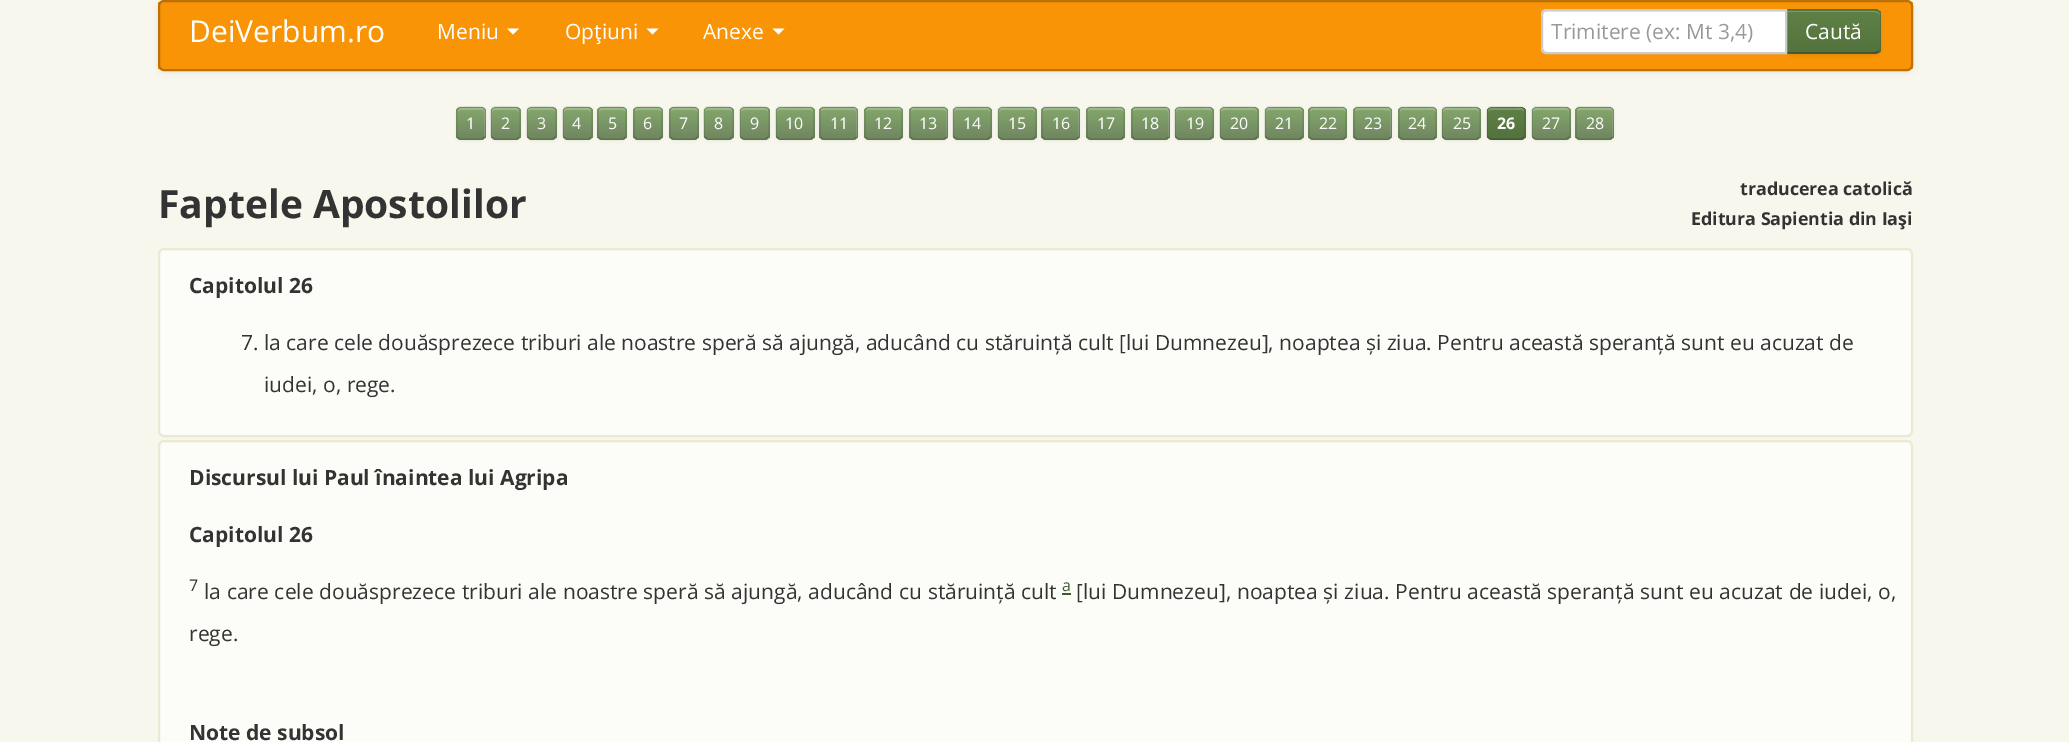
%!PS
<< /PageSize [2069 742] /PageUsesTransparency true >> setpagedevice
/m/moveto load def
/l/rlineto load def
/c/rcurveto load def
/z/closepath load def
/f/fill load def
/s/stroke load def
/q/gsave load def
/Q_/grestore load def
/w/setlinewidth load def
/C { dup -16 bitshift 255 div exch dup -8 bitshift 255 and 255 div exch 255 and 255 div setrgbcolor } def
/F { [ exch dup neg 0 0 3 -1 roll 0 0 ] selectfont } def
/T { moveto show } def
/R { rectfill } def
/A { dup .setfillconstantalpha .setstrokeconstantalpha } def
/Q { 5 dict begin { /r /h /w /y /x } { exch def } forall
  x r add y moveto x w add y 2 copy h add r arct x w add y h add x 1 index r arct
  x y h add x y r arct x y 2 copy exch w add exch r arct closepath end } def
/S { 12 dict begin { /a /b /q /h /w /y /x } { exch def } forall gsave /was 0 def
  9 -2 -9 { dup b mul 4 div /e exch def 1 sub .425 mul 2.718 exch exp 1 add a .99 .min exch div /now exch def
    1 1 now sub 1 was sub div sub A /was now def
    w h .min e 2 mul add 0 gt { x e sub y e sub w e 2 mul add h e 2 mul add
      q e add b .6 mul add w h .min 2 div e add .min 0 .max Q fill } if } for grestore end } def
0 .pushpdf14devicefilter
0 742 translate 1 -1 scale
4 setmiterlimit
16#F7F7ED C
0 0 2069 742 R
16#000000 C
158 2 1755 70 6 3 .07 S
q
158 0 1755 71 6 Q clip newpath
16#F89406 C
158 2 1755 67 R
Q_
16#BC7005 C
2 w
159 1 1753 69 5 Q s
/OpenSans-Regular 30 F
16#FFFFFF C
(DeiVerbum.ro) 189 42 T
/OpenSans-Regular 21 F
(Meniu) 437 39 T
507 28.5 m 12 0 l -6 6 l z f
(Opţiuni) 565 39 T
646.5 28.5 m 12 0 l -6 6 l z f
(Anexe) 703 39 T
772.5 28.5 m 12 0 l -6 6 l z f
16#000000 C
1785 11 96 45 6 1.5 .05 S
16#5A7B42 C
1785 9 m 90 0 l 3.5 0 6 2.5 6 6 c 0 33 l 0 3.5 -2.5 6 -6 6 c -90 0 l z f
q
1785 9 m 90 0 l 3.5 0 6 2.5 6 6 c 0 33 l 0 3.5 -2.5 6 -6 6 c -90 0 l z clip newpath
q 1787 11 m 94 0 l 0 42 l -94 0 l z clip newpath
<< /ShadingType 2 /ColorSpace /DeviceRGB /Coords [1833 10 1833 53] /Extend [true true] /Function << /FunctionType 2 /Domain [0 1] /C0 [.369 .502 .271] /C1 [.329 .451 .239] /N 1 >> >> shfill Q_
Q_
16#7E996A C
1787 11 m 0 1 l 88 0 l 2 0 5 2 5 4 c 0 -3 -2 -5 -5 -5 c z f
0.1 A
16#000000 C
1785 9 m 1 1 l 89 0 l 3 2 l 1 -1 l -1 -1 -3 -2 -4 -2 c z f
1881 48 m 0 -33 l 0 -1 -1 -3 -2 -4 c -1 1 l 1 1 2 2 2 3 c 0 33 l 0 1 -1 2 -2 3 c 1 1 l 1 -1 2 -2 2 -4 c z f
0.25 A
1875 54 m 1 0 3 -1 4 -2 c -1 -1 l -3 1 l -88 0 l -2 2 l z f
1 A
16#FFFFFF C
1547 9 m 240 0 l 0 45 l -240 0 l -3.5 0 -6 -2.5 -6 -6 c 0 -33 l 0 -3.5 2.5 -6 6 -6 c z f
16#ECECEC C
1546 12 m 239 0 l 0 -1 l -238 0 l -3 0 -5 2 -5 5 c 0 -2 2 -4 4 -4 c z f
16#CCCCCC C
1547 10 m 239 0 l 0 43 l -239 0 l -3 0 -5 -2 -5 -5 c 0 -33 l 0 -3 2 -5 5 -5 c z s
16#999999 C
(Trimitere \(ex: Mt 3,4\)) 1551 39 T
16#FFFFFF C
(Caută) 1805 39 T
16#000000 C
456 108 30 33 5 1.5 .05 S
16#7C9A67 C
456 107 30 33 5 Q f
q
456 107 30 33 5 Q clip newpath
q 456 108 m 30 0 l 0 30 l -30 0 l z clip newpath
<< /ShadingType 2 /ColorSpace /DeviceRGB /Coords [471 108 471 138] /Extend [true true] /Function << /FunctionType 2 /Domain [0 1] /C0 [.518 .651 .424] /C1 [.439 .529 .376] /N 1 >> >> shfill Q_
Q_
0.2 A
16#FFFFFF C
460 110 m 22.5 0 l 2.5 .5 1.5 4.5 1.5 6 c 0 21.5 l 1.5 -1.5 1 -4.5 1 -6.5 c 0 -8 l 0 -17 3 -15 -13.5 -15 c -7 0 l -4 0 -6.5 -.5 -6.5 4 c 0 -1 1 -2 2 -2 c z f
0.25 A
16#000000 C
1.5 w
484 137.5 m -.5 1 -1.5 1.5 -2.5 1.5 c -21 0 l -1 0 -2 -.5 -2.5 -1.5 c s
0.1 A
458 137.5 m -2 -1.5 -1 -4.5 -1 -6.5 c 0 -8 l 0 -17.5 -3 -16 14 -16 c 17 0 14 -1.5 14 16 c 0 8 l 0 2 1 5 -1 6.5 c s
/OpenSans-Regular 16 F
1 A
16#FFFFFF C
(1) 466 129 T
16#000000 C
491 108 30 33 5 1.5 .05 S
16#7C9A67 C
491 107 30 33 5 Q f
q
491 107 30 33 5 Q clip newpath
q 491 108 m 30 0 l 0 30 l -30 0 l z clip newpath
<< /ShadingType 2 /ColorSpace /DeviceRGB /Coords [506 108 506 138] /Extend [true true] /Function << /FunctionType 2 /Domain [0 1] /C0 [.518 .651 .424] /C1 [.439 .529 .376] /N 1 >> >> shfill Q_
Q_
16#9CB789 C
495 110 m 21 0 l 2 0 3 1 3 2 c 0 -4.5 -2.5 -4 -6.5 -4 c -14 0 l -4 0 -6.5 -.5 -6.5 4 c 0 -1 1 -2 3 -2 c z f
0.25 A
16#000000 C
518.5 137.5 m -.5 1 -1.5 1.5 -2.5 1.5 c -21 0 l -1 0 -2 -.5 -2.5 -1.5 c s
0.1 A
492.5 137.5 m -2 -1.5 -1.5 -4.5 -1.5 -6.5 c 0 -8 l 0 -17.5 -2.5 -16 14.5 -16 c 17 0 14.5 -1.5 14.5 16 c 0 8 l 0 2 .5 5 -1.5 6.5 c s
1 A
16#FFFFFF C
(2) 501 129 T
16#000000 C
527 108 30 33 5 1.5 .05 S
16#7C9A67 C
527 107 30 33 5 Q f
q
527 107 30 33 5 Q clip newpath
q 527 108 m 30 0 l 0 30 l -30 0 l z clip newpath
<< /ShadingType 2 /ColorSpace /DeviceRGB /Coords [542 108 542 138] /Extend [true true] /Function << /FunctionType 2 /Domain [0 1] /C0 [.518 .651 .424] /C1 [.439 .529 .376] /N 1 >> >> shfill Q_
Q_
16#9CB789 C
531 110 m 21 0 l 2 0 3 1 3 2 c 0 -4.5 -2.5 -4 -6.5 -4 c -14 0 l -4 0 -6.5 -.5 -6.5 4 c 0 -1 1 -2 3 -2 c z f
0.25 A
16#000000 C
554.5 137.5 m -.5 1 -1.5 1.5 -2.5 1.5 c -21 0 l -1 0 -2 -.5 -2.5 -1.5 c s
0.1 A
528.5 137.5 m -2 -1.5 -1.5 -4.5 -1.5 -6.5 c 0 -8 l 0 -17.5 -2.5 -16 14.5 -16 c 17 0 14.5 -1.5 14.5 16 c 0 8 l 0 2 .5 5 -1.5 6.5 c s
1 A
16#FFFFFF C
(3) 537 129 T
16#000000 C
563 108 30 33 5 1.5 .05 S
16#7C9A67 C
563 107 30 33 5 Q f
q
563 107 30 33 5 Q clip newpath
q 563 108 m 30 0 l 0 30 l -30 0 l z clip newpath
<< /ShadingType 2 /ColorSpace /DeviceRGB /Coords [578 108 578 138] /Extend [true true] /Function << /FunctionType 2 /Domain [0 1] /C0 [.518 .651 .424] /C1 [.439 .529 .376] /N 1 >> >> shfill Q_
Q_
16#9CB789 C
567 110 m 21 0 l 2 0 3 1 3 2 c 0 -4.5 -2.5 -4 -6.5 -4 c -14 0 l -4 0 -6.5 -.5 -6.5 4 c 0 -1 1 -2 3 -2 c z f
0.25 A
16#000000 C
590.5 137.5 m -.5 1 -1.5 1.5 -2.5 1.5 c -21 0 l -1 0 -2 -.5 -2.5 -1.5 c s
0.1 A
564.5 137.5 m -2 -1.5 -1.5 -4.5 -1.5 -6.5 c 0 -8 l 0 -17.5 -2.5 -16 14.5 -16 c 17 0 14.5 -1.5 14.5 16 c 0 8 l 0 2 .5 5 -1.5 6.5 c s
1 A
16#FFFFFF C
(4) 572 129 T
16#000000 C
597 108 30 33 5 1.5 .05 S
16#7C9A67 C
597 107 30 33 5 Q f
q
597 107 30 33 5 Q clip newpath
q 597 108 m 30 0 l 0 30 l -30 0 l z clip newpath
<< /ShadingType 2 /ColorSpace /DeviceRGB /Coords [612 108 612 138] /Extend [true true] /Function << /FunctionType 2 /Domain [0 1] /C0 [.518 .651 .424] /C1 [.439 .529 .376] /N 1 >> >> shfill Q_
Q_
16#9CB689 C
602 110 m 20 0 l 2 0 4 1 4 2 c 0 -1 l 0 -1.5 -1.5 -3 -3 -3 c -21 0 l -1.5 0 -3 1 -3 3 c z f
0.25 A
16#000000 C
625 137.5 m -.5 1 -1.5 1.5 -2.5 1.5 c -21 0 l -1 0 -2 -.5 -2.5 -1.5 c s
0.1 A
599 137.5 m -2 -1.5 -1 -4.5 -1 -6.5 c 0 -8 l 0 -17.5 -3 -16 14 -16 c 17 0 14 -1.5 14 16 c 0 8 l 0 2 1 5 -1 6.5 c s
1 A
16#FFFFFF C
(5) 608 129 T
16#000000 C
633 108 30 33 5 1.5 .05 S
16#7C9A67 C
633 107 30 33 5 Q f
q
633 107 30 33 5 Q clip newpath
q 633 108 m 30 0 l 0 30 l -30 0 l z clip newpath
<< /ShadingType 2 /ColorSpace /DeviceRGB /Coords [648 108 648 138] /Extend [true true] /Function << /FunctionType 2 /Domain [0 1] /C0 [.518 .651 .424] /C1 [.439 .529 .376] /N 1 >> >> shfill Q_
Q_
16#9CB689 C
638 110 m 20 0 l 2 0 4 1 4 2 c 0 -1 l 0 -1.5 -1.5 -3 -3 -3 c -21 0 l -1.5 0 -3 1 -3 3 c z f
0.25 A
16#000000 C
661 137.5 m -.5 1 -1.5 1.5 -2.5 1.5 c -21 0 l -1 0 -2 -.5 -2.5 -1.5 c s
0.1 A
635 137.5 m -2 -1.5 -1 -4.5 -1 -6.5 c 0 -8 l 0 -17.5 -3 -16 14 -16 c 17 0 14 -1.5 14 16 c 0 8 l 0 2 1 5 -1 6.5 c s
1 A
16#FFFFFF C
(6) 643 129 T
16#000000 C
669 108 30 33 5 1.5 .05 S
16#7C9A67 C
669 107 30 33 5 Q f
q
669 107 30 33 5 Q clip newpath
q 669 108 m 30 0 l 0 30 l -30 0 l z clip newpath
<< /ShadingType 2 /ColorSpace /DeviceRGB /Coords [684 108 684 138] /Extend [true true] /Function << /FunctionType 2 /Domain [0 1] /C0 [.518 .651 .424] /C1 [.439 .529 .376] /N 1 >> >> shfill Q_
Q_
16#9CB689 C
674 110 m 20 0 l 2 0 4 1 4 2 c 0 -1 l 0 -1.5 -1.5 -3 -3 -3 c -21 0 l -1.5 0 -3 1 -3 3 c z f
0.25 A
16#000000 C
697 137.5 m -.5 1 -1.5 1.5 -2.5 1.5 c -21 0 l -1 0 -2 -.5 -2.5 -1.5 c s
0.1 A
671 137.5 m -2 -1.5 -1 -4.5 -1 -6.5 c 0 -8 l 0 -17.5 -3 -16 14 -16 c 17 0 14 -1.5 14 16 c 0 8 l 0 2 1 5 -1 6.5 c s
1 A
16#FFFFFF C
(7) 679 129 T
16#000000 C
704 108 30 33 5 1.5 .05 S
16#7C9A67 C
704 107 30 33 5 Q f
q
704 107 30 33 5 Q clip newpath
q 704 108 m 30 0 l 0 30 l -30 0 l z clip newpath
<< /ShadingType 2 /ColorSpace /DeviceRGB /Coords [719 108 719 138] /Extend [true true] /Function << /FunctionType 2 /Domain [0 1] /C0 [.518 .651 .424] /C1 [.439 .529 .376] /N 1 >> >> shfill Q_
Q_
16#9CB789 C
708 110 m 21 0 l 2 0 3 1 3 2 c 0 -4.5 -2.5 -4 -6.5 -4 c -14 0 l -4 0 -6.5 -.5 -6.5 4 c 0 -1 1 -2 3 -2 c z f
0.25 A
16#000000 C
731.5 137.5 m -.5 1 -1.5 1.5 -2.5 1.5 c -21 0 l -1 0 -2 -.5 -2.5 -1.5 c s
0.1 A
705.5 137.5 m -2 -1.5 -1.5 -4.5 -1.5 -6.5 c 0 -8 l 0 -17.5 -2.5 -16 14.5 -16 c 17 0 14.5 -1.5 14.5 16 c 0 8 l 0 2 .5 5 -1.5 6.5 c s
1 A
16#FFFFFF C
(8) 714 129 T
16#000000 C
740 108 30 33 5 1.5 .05 S
16#7C9A67 C
740 107 30 33 5 Q f
q
740 107 30 33 5 Q clip newpath
q 740 108 m 30 0 l 0 30 l -30 0 l z clip newpath
<< /ShadingType 2 /ColorSpace /DeviceRGB /Coords [755 108 755 138] /Extend [true true] /Function << /FunctionType 2 /Domain [0 1] /C0 [.518 .651 .424] /C1 [.439 .529 .376] /N 1 >> >> shfill Q_
Q_
16#9CB789 C
744 110 m 21 0 l 2 0 3 1 3 2 c 0 -4.5 -2.5 -4 -6.5 -4 c -14 0 l -4 0 -6.5 -.5 -6.5 4 c 0 -1 1 -2 3 -2 c z f
0.25 A
16#000000 C
767.5 137.5 m -.5 1 -1.5 1.5 -2.5 1.5 c -21 0 l -1 0 -2 -.5 -2.5 -1.5 c s
0.1 A
741.5 137.5 m -2 -1.5 -1.5 -4.5 -1.5 -6.5 c 0 -8 l 0 -17.5 -2.5 -16 14.5 -16 c 17 0 14.5 -1.5 14.5 16 c 0 8 l 0 2 .5 5 -1.5 6.5 c s
1 A
16#FFFFFF C
(9) 750 129 T
16#000000 C
776 108 39 33 5 1.5 .05 S
16#7C9A67 C
776 107 39 33 5 Q f
q
776 107 39 33 5 Q clip newpath
q 776 108 m 39 0 l 0 30 l -39 0 l z clip newpath
<< /ShadingType 2 /ColorSpace /DeviceRGB /Coords [795 108 795 138] /Extend [true true] /Function << /FunctionType 2 /Domain [0 1] /C0 [.518 .651 .424] /C1 [.439 .529 .376] /N 1 >> >> shfill Q_
Q_
16#9CB789 C
780 110 m 30 0 l 2 0 3 1 3 2 c 0 -5 -4 -4 -8 -4 c -20 0 l -4 0 -8 -1 -8 4 c 0 -1 1 -2 3 -2 c z f
0.25 A
16#000000 C
812.5 137.5 m -.5 1 -1.5 1.5 -2.5 1.5 c -30 0 l -1 0 -2 -.5 -2.5 -1.5 c s
0.1 A
777.5 137.5 m -1 -.5 -1.5 -1.5 -1.5 -2.5 c 0 -24 l 0 -1 .5 -2 1.5 -2.5 c .5 -1 1.5 -1.5 2.5 -1.5 c 30 0 l 1 0 2 .5 2.5 1.5 c 1 .5 1.5 1.5 1.5 2.5 c 0 24 l 0 1 -.5 2 -1.5 2.5 c s
1 A
16#FFFFFF C
(10) 785 129 T
16#000000 C
819 108 39 33 5 1.5 .05 S
16#7C9A67 C
819 107 39 33 5 Q f
q
819 107 39 33 5 Q clip newpath
q 819 108 m 39 0 l 0 30 l -39 0 l z clip newpath
<< /ShadingType 2 /ColorSpace /DeviceRGB /Coords [839 108 839 138] /Extend [true true] /Function << /FunctionType 2 /Domain [0 1] /C0 [.518 .651 .424] /C1 [.439 .529 .376] /N 1 >> >> shfill Q_
Q_
0.2 A
16#FFFFFF C
824 110 m 25 0 l 9 0 7 0 7 10 c 0 17.5 l .5 -.5 1 -1.5 1 -2.5 c 0 -24 l 0 -1.5 -1.5 -3 -3 -3 c -30 0 l -1.5 0 -3 1 -3 3 c z f
0.25 A
16#000000 C
856 137.5 m -.5 1 -1.5 1.5 -2.5 1.5 c -30 0 l -1 0 -2 -.5 -2.5 -1.5 c s
0.1 A
821 137.5 m -1 -.5 -1 -1.5 -1 -2.5 c 0 -24 l 0 -1 0 -2 1 -2.5 c .5 -1 1.5 -1.5 2.5 -1.5 c 30 0 l 1 0 2 .5 2.5 1.5 c 1 .5 1 1.5 1 2.5 c 0 24 l 0 1 0 2 -1 2.5 c s
1 A
16#FFFFFF C
(11) 830 129 T
16#000000 C
864 108 39 33 5 1.5 .05 S
16#7C9A67 C
864 107 39 33 5 Q f
q
864 107 39 33 5 Q clip newpath
q 864 108 m 39 0 l 0 30 l -39 0 l z clip newpath
<< /ShadingType 2 /ColorSpace /DeviceRGB /Coords [884 108 884 138] /Extend [true true] /Function << /FunctionType 2 /Domain [0 1] /C0 [.518 .651 .424] /C1 [.439 .529 .376] /N 1 >> >> shfill Q_
Q_
16#9CB789 C
868 110 m 30 0 l 2 0 4 1 4 2 c 0 -5 -4 -4 -8 -4 c -20 0 l -4 0 -8 -1 -8 4 c 0 -1 1 -2 2 -2 c z f
0.25 A
16#000000 C
901 137.5 m -.5 1 -1.5 1.5 -2.5 1.5 c -30 0 l -1 0 -2 -.5 -2.5 -1.5 c s
0.1 A
866 137.5 m -1 -.5 -1 -1.5 -1 -2.5 c 0 -24 l 0 -1 0 -2 1 -2.5 c .5 -1 1.5 -1.5 2.5 -1.5 c 30 0 l 1 0 2 .5 2.5 1.5 c 1 .5 1 1.5 1 2.5 c 0 24 l 0 1 0 2 -1 2.5 c s
1 A
16#FFFFFF C
(12) 874 129 T
16#000000 C
909 108 39 33 5 1.5 .05 S
16#7C9A67 C
909 107 39 33 5 Q f
q
909 107 39 33 5 Q clip newpath
q 909 108 m 39 0 l 0 30 l -39 0 l z clip newpath
<< /ShadingType 2 /ColorSpace /DeviceRGB /Coords [929 108 929 138] /Extend [true true] /Function << /FunctionType 2 /Domain [0 1] /C0 [.518 .651 .424] /C1 [.439 .529 .376] /N 1 >> >> shfill Q_
Q_
0.2 A
16#FFFFFF C
914 110 m 25 0 l 9 0 7 0 7 10 c 0 17.5 l .5 -.5 1 -1.5 1 -2.5 c 0 -24 l 0 -1.5 -1.5 -3 -3 -3 c -30 0 l -1.5 0 -3 1 -3 3 c z f
0.25 A
16#000000 C
946 137.5 m -.5 1 -1.5 1.5 -2.5 1.5 c -30 0 l -1 0 -2 -.5 -2.5 -1.5 c s
0.1 A
911 137.5 m -1 -.5 -1 -1.5 -1 -2.5 c 0 -24 l 0 -1 0 -2 1 -2.5 c .5 -1 1.5 -1.5 2.5 -1.5 c 30 0 l 1 0 2 .5 2.5 1.5 c 1 .5 1 1.5 1 2.5 c 0 24 l 0 1 0 2 -1 2.5 c s
1 A
16#FFFFFF C
(13) 919 129 T
16#000000 C
953 108 39 33 5 1.5 .05 S
16#7C9A67 C
953 107 39 33 5 Q f
q
953 107 39 33 5 Q clip newpath
q 953 108 m 39 0 l 0 30 l -39 0 l z clip newpath
<< /ShadingType 2 /ColorSpace /DeviceRGB /Coords [972 108 972 138] /Extend [true true] /Function << /FunctionType 2 /Domain [0 1] /C0 [.518 .651 .424] /C1 [.439 .529 .376] /N 1 >> >> shfill Q_
Q_
16#9CB789 C
957 110 m 30 0 l 2 0 3 1 3 2 c 0 -5 -4 -4 -8 -4 c -20 0 l -4 0 -8 -1 -8 4 c 0 -1 1 -2 3 -2 c z f
0.25 A
16#000000 C
989.5 137.5 m -.5 1 -1.5 1.5 -2.5 1.5 c -30 0 l -1 0 -2 -.5 -2.5 -1.5 c s
0.1 A
954.5 137.5 m -1 -.5 -1.5 -1.5 -1.5 -2.5 c 0 -24 l 0 -1 .5 -2 1.5 -2.5 c .5 -1 1.5 -1.5 2.5 -1.5 c 30 0 l 1 0 2 .5 2.5 1.5 c 1 .5 1.5 1.5 1.5 2.5 c 0 24 l 0 1 -.5 2 -1.5 2.5 c s
1 A
16#FFFFFF C
(14) 963 129 T
16#000000 C
998 108 39 33 5 1.5 .05 S
16#7C9A67 C
998 107 39 33 5 Q f
q
998 107 39 33 5 Q clip newpath
q 998 108 m 39 0 l 0 30 l -39 0 l z clip newpath
<< /ShadingType 2 /ColorSpace /DeviceRGB /Coords [1017 108 1017 138] /Extend [true true] /Function << /FunctionType 2 /Domain [0 1] /C0 [.518 .651 .424] /C1 [.439 .529 .376] /N 1 >> >> shfill Q_
Q_
16#9CB789 C
1002 110 m 30 0 l 2 0 3 1 3 2 c 0 -5 -4 -4 -8 -4 c -20 0 l -4 0 -8 -1 -8 4 c 0 -1 1 -2 3 -2 c z f
0.25 A
16#000000 C
1034.5 137.5 m -.5 1 -1.5 1.5 -2.5 1.5 c -30 0 l -1 0 -2 -.5 -2.5 -1.5 c s
0.1 A
999.5 137.5 m -1 -.5 -1.5 -1.5 -1.5 -2.5 c 0 -24 l 0 -1 .5 -2 1.5 -2.5 c .5 -1 1.5 -1.5 2.5 -1.5 c 30 0 l 1 0 2 .5 2.5 1.5 c 1 .5 1.5 1.5 1.5 2.5 c 0 24 l 0 1 -.5 2 -1.5 2.5 c s
1 A
16#FFFFFF C
(15) 1008 129 T
16#000000 C
1041 108 39 33 5 1.5 .05 S
16#7C9A67 C
1041 107 39 33 5 Q f
q
1041 107 39 33 5 Q clip newpath
q 1041 108 m 39 0 l 0 30 l -39 0 l z clip newpath
<< /ShadingType 2 /ColorSpace /DeviceRGB /Coords [1061 108 1061 138] /Extend [true true] /Function << /FunctionType 2 /Domain [0 1] /C0 [.518 .651 .424] /C1 [.439 .529 .376] /N 1 >> >> shfill Q_
Q_
0.2 A
16#FFFFFF C
1046 110 m 25 0 l 9 0 7 0 7 10 c 0 17.5 l .5 -.5 1 -1.5 1 -2.5 c 0 -24 l 0 -1.5 -1.5 -3 -3 -3 c -30 0 l -1.5 0 -3 1 -3 3 c z f
0.25 A
16#000000 C
1078 137.5 m -.5 1 -1.5 1.5 -2.5 1.5 c -30 0 l -1 0 -2 -.5 -2.5 -1.5 c s
0.1 A
1043 137.5 m -1 -.5 -1 -1.5 -1 -2.5 c 0 -24 l 0 -1 0 -2 1 -2.5 c .5 -1 1.5 -1.5 2.5 -1.5 c 30 0 l 1 0 2 .5 2.5 1.5 c 1 .5 1 1.5 1 2.5 c 0 24 l 0 1 0 2 -1 2.5 c s
1 A
16#FFFFFF C
(16) 1052 129 T
16#000000 C
1086 108 39 33 5 1.5 .05 S
16#7C9A67 C
1086 107 39 33 5 Q f
q
1086 107 39 33 5 Q clip newpath
q 1086 108 m 39 0 l 0 30 l -39 0 l z clip newpath
<< /ShadingType 2 /ColorSpace /DeviceRGB /Coords [1106 108 1106 138] /Extend [true true] /Function << /FunctionType 2 /Domain [0 1] /C0 [.518 .651 .424] /C1 [.439 .529 .376] /N 1 >> >> shfill Q_
Q_
16#9CB789 C
1090 110 m 30 0 l 2 0 4 1 4 2 c 0 -5 -4 -4 -8 -4 c -20 0 l -4 0 -8 -1 -8 4 c 0 -1 1 -2 2 -2 c z f
0.25 A
16#000000 C
1123 137.5 m -.5 1 -1.5 1.5 -2.5 1.5 c -30 0 l -1 0 -2 -.5 -2.5 -1.5 c s
0.1 A
1088 137.5 m -1 -.5 -1 -1.5 -1 -2.5 c 0 -24 l 0 -1 0 -2 1 -2.5 c .5 -1 1.5 -1.5 2.5 -1.5 c 30 0 l 1 0 2 .5 2.5 1.5 c 1 .5 1 1.5 1 2.5 c 0 24 l 0 1 0 2 -1 2.5 c s
1 A
16#FFFFFF C
(17) 1097 129 T
16#000000 C
1131 108 39 33 5 1.5 .05 S
16#7C9A67 C
1131 107 39 33 5 Q f
q
1131 107 39 33 5 Q clip newpath
q 1131 108 m 39 0 l 0 30 l -39 0 l z clip newpath
<< /ShadingType 2 /ColorSpace /DeviceRGB /Coords [1151 108 1151 138] /Extend [true true] /Function << /FunctionType 2 /Domain [0 1] /C0 [.518 .651 .424] /C1 [.439 .529 .376] /N 1 >> >> shfill Q_
Q_
0.2 A
16#FFFFFF C
1136 110 m 25 0 l 9 0 7 0 7 10 c 0 17.5 l .5 -.5 1 -1.5 1 -2.5 c 0 -24 l 0 -1.5 -1.5 -3 -3 -3 c -30 0 l -1.5 0 -3 1 -3 3 c z f
0.25 A
16#000000 C
1168 137.5 m -.5 1 -1.5 1.5 -2.5 1.5 c -30 0 l -1 0 -2 -.5 -2.5 -1.5 c s
0.1 A
1133 137.5 m -1 -.5 -1 -1.5 -1 -2.5 c 0 -24 l 0 -1 0 -2 1 -2.5 c .5 -1 1.5 -1.5 2.5 -1.5 c 30 0 l 1 0 2 .5 2.5 1.5 c 1 .5 1 1.5 1 2.5 c 0 24 l 0 1 0 2 -1 2.5 c s
1 A
16#FFFFFF C
(18) 1141 129 T
16#000000 C
1175 108 39 33 5 1.5 .05 S
16#7C9A67 C
1175 107 39 33 5 Q f
q
1175 107 39 33 5 Q clip newpath
q 1175 108 m 39 0 l 0 30 l -39 0 l z clip newpath
<< /ShadingType 2 /ColorSpace /DeviceRGB /Coords [1194 108 1194 138] /Extend [true true] /Function << /FunctionType 2 /Domain [0 1] /C0 [.518 .651 .424] /C1 [.439 .529 .376] /N 1 >> >> shfill Q_
Q_
16#9CB789 C
1179 110 m 30 0 l 2 0 3 1 3 2 c 0 -5 -4 -4 -8 -4 c -20 0 l -4 0 -8 -1 -8 4 c 0 -1 1 -2 3 -2 c z f
0.25 A
16#000000 C
1211.5 137.5 m -.5 1 -1.5 1.5 -2.5 1.5 c -30 0 l -1 0 -2 -.5 -2.5 -1.5 c s
0.1 A
1176.5 137.5 m -1 -.5 -1.5 -1.5 -1.5 -2.5 c 0 -24 l 0 -1 .5 -2 1.5 -2.5 c .5 -1 1.5 -1.5 2.5 -1.5 c 30 0 l 1 0 2 .5 2.5 1.5 c 1 .5 1.5 1.5 1.5 2.5 c 0 24 l 0 1 -.5 2 -1.5 2.5 c s
1 A
16#FFFFFF C
(19) 1186 129 T
16#000000 C
1220 108 39 33 5 1.5 .05 S
16#7C9A67 C
1220 107 39 33 5 Q f
q
1220 107 39 33 5 Q clip newpath
q 1220 108 m 39 0 l 0 30 l -39 0 l z clip newpath
<< /ShadingType 2 /ColorSpace /DeviceRGB /Coords [1239 108 1239 138] /Extend [true true] /Function << /FunctionType 2 /Domain [0 1] /C0 [.518 .651 .424] /C1 [.439 .529 .376] /N 1 >> >> shfill Q_
Q_
16#9CB789 C
1224 110 m 30 0 l 2 0 3 1 3 2 c 0 -5 -4 -4 -8 -4 c -20 0 l -4 0 -8 -1 -8 4 c 0 -1 1 -2 3 -2 c z f
0.25 A
16#000000 C
1256.5 137.5 m -.5 1 -1.5 1.5 -2.5 1.5 c -30 0 l -1 0 -2 -.5 -2.5 -1.5 c s
0.1 A
1221.5 137.5 m -1 -.5 -1.5 -1.5 -1.5 -2.5 c 0 -24 l 0 -1 .5 -2 1.5 -2.5 c .5 -1 1.5 -1.5 2.5 -1.5 c 30 0 l 1 0 2 .5 2.5 1.5 c 1 .5 1.5 1.5 1.5 2.5 c 0 24 l 0 1 -.5 2 -1.5 2.5 c s
1 A
16#FFFFFF C
(20) 1230 129 T
16#000000 C
1265 108 39 33 5 1.5 .05 S
16#7C9A67 C
1265 107 39 33 5 Q f
q
1265 107 39 33 5 Q clip newpath
q 1265 108 m 39 0 l 0 30 l -39 0 l z clip newpath
<< /ShadingType 2 /ColorSpace /DeviceRGB /Coords [1284 108 1284 138] /Extend [true true] /Function << /FunctionType 2 /Domain [0 1] /C0 [.518 .651 .424] /C1 [.439 .529 .376] /N 1 >> >> shfill Q_
Q_
16#9CB789 C
1269 110 m 30 0 l 2 0 3 1 3 2 c 0 -5 -4 -4 -8 -4 c -20 0 l -4 0 -8 -1 -8 4 c 0 -1 1 -2 3 -2 c z f
0.25 A
16#000000 C
1301.5 137.5 m -.5 1 -1.5 1.5 -2.5 1.5 c -30 0 l -1 0 -2 -.5 -2.5 -1.5 c s
0.1 A
1266.5 137.5 m -1 -.5 -1.5 -1.5 -1.5 -2.5 c 0 -24 l 0 -1 .5 -2 1.5 -2.5 c .5 -1 1.5 -1.5 2.5 -1.5 c 30 0 l 1 0 2 .5 2.5 1.5 c 1 .5 1.5 1.5 1.5 2.5 c 0 24 l 0 1 -.5 2 -1.5 2.5 c s
1 A
16#FFFFFF C
(21) 1275 129 T
16#000000 C
1308 108 39 33 5 1.5 .05 S
16#7C9A67 C
1308 107 39 33 5 Q f
q
1308 107 39 33 5 Q clip newpath
q 1308 108 m 39 0 l 0 30 l -39 0 l z clip newpath
<< /ShadingType 2 /ColorSpace /DeviceRGB /Coords [1328 108 1328 138] /Extend [true true] /Function << /FunctionType 2 /Domain [0 1] /C0 [.518 .651 .424] /C1 [.439 .529 .376] /N 1 >> >> shfill Q_
Q_
16#9CB789 C
1312 110 m 30 0 l 2 0 4 1 4 2 c 0 -5 -4 -4 -8 -4 c -20 0 l -4 0 -8 -1 -8 4 c 0 -1 1 -2 2 -2 c z f
0.25 A
16#000000 C
1345 137.5 m -.5 1 -1.5 1.5 -2.5 1.5 c -30 0 l -1 0 -2 -.5 -2.5 -1.5 c s
0.1 A
1310 137.5 m -1 -.5 -1 -1.5 -1 -2.5 c 0 -24 l 0 -1 0 -2 1 -2.5 c .5 -1 1.5 -1.5 2.5 -1.5 c 30 0 l 1 0 2 .5 2.5 1.5 c 1 .5 1 1.5 1 2.5 c 0 24 l 0 1 0 2 -1 2.5 c s
1 A
16#FFFFFF C
(22) 1319 129 T
16#000000 C
1353 108 39 33 5 1.5 .05 S
16#7C9A67 C
1353 107 39 33 5 Q f
q
1353 107 39 33 5 Q clip newpath
q 1353 108 m 39 0 l 0 30 l -39 0 l z clip newpath
<< /ShadingType 2 /ColorSpace /DeviceRGB /Coords [1373 108 1373 138] /Extend [true true] /Function << /FunctionType 2 /Domain [0 1] /C0 [.518 .651 .424] /C1 [.439 .529 .376] /N 1 >> >> shfill Q_
Q_
0.2 A
16#FFFFFF C
1358 110 m 25 0 l 9 0 7 0 7 10 c 0 17.5 l .5 -.5 1 -1.5 1 -2.5 c 0 -24 l 0 -1.5 -1.5 -3 -3 -3 c -30 0 l -1.5 0 -3 1 -3 3 c z f
0.25 A
16#000000 C
1390 137.5 m -.5 1 -1.5 1.5 -2.5 1.5 c -30 0 l -1 0 -2 -.5 -2.5 -1.5 c s
0.1 A
1355 137.5 m -1 -.5 -1 -1.5 -1 -2.5 c 0 -24 l 0 -1 0 -2 1 -2.5 c .5 -1 1.5 -1.5 2.5 -1.5 c 30 0 l 1 0 2 .5 2.5 1.5 c 1 .5 1 1.5 1 2.5 c 0 24 l 0 1 0 2 -1 2.5 c s
1 A
16#FFFFFF C
(23) 1364 129 T
16#000000 C
1398 108 39 33 5 1.5 .05 S
16#7C9A67 C
1398 107 39 33 5 Q f
q
1398 107 39 33 5 Q clip newpath
q 1398 108 m 39 0 l 0 30 l -39 0 l z clip newpath
<< /ShadingType 2 /ColorSpace /DeviceRGB /Coords [1418 108 1418 138] /Extend [true true] /Function << /FunctionType 2 /Domain [0 1] /C0 [.518 .651 .424] /C1 [.439 .529 .376] /N 1 >> >> shfill Q_
Q_
16#9CB789 C
1402 110 m 30 0 l 2 0 4 1 4 2 c 0 -5 -4 -4 -8 -4 c -20 0 l -4 0 -8 -1 -8 4 c 0 -1 1 -2 2 -2 c z f
0.25 A
16#000000 C
1435 137.5 m -.5 1 -1.5 1.5 -2.5 1.5 c -30 0 l -1 0 -2 -.5 -2.5 -1.5 c s
0.1 A
1400 137.5 m -1 -.5 -1 -1.5 -1 -2.5 c 0 -24 l 0 -1 0 -2 1 -2.5 c .5 -1 1.5 -1.5 2.5 -1.5 c 30 0 l 1 0 2 .5 2.5 1.5 c 1 .5 1 1.5 1 2.5 c 0 24 l 0 1 0 2 -1 2.5 c s
1 A
16#FFFFFF C
(24) 1408 129 T
16#000000 C
1442 108 39 33 5 1.5 .05 S
16#7C9A67 C
1442 107 39 33 5 Q f
q
1442 107 39 33 5 Q clip newpath
q 1442 108 m 39 0 l 0 30 l -39 0 l z clip newpath
<< /ShadingType 2 /ColorSpace /DeviceRGB /Coords [1461 108 1461 138] /Extend [true true] /Function << /FunctionType 2 /Domain [0 1] /C0 [.518 .651 .424] /C1 [.439 .529 .376] /N 1 >> >> shfill Q_
Q_
16#9CB789 C
1446 110 m 30 0 l 2 0 3 1 3 2 c 0 -5 -4 -4 -8 -4 c -20 0 l -4 0 -8 -1 -8 4 c 0 -1 1 -2 3 -2 c z f
0.25 A
16#000000 C
1478.5 137.5 m -.5 1 -1.5 1.5 -2.5 1.5 c -30 0 l -1 0 -2 -.5 -2.5 -1.5 c s
0.1 A
1443.5 137.5 m -1 -.5 -1.5 -1.5 -1.5 -2.5 c 0 -24 l 0 -1 .5 -2 1.5 -2.5 c .5 -1 1.5 -1.5 2.5 -1.5 c 30 0 l 1 0 2 .5 2.5 1.5 c 1 .5 1.5 1.5 1.5 2.5 c 0 24 l 0 1 -.5 2 -1.5 2.5 c s
1 A
16#FFFFFF C
(25) 1453 129 T
16#000000 C
1487 108 39 33 5 1.5 .05 S
16#5A7B42 C
1487 107 39 33 5 Q f
q
1487 107 39 33 5 Q clip newpath
q 1487 108 m 39 0 l 0 30 l -39 0 l z clip newpath
<< /ShadingType 2 /ColorSpace /DeviceRGB /Coords [1506 108 1506 138] /Extend [true true] /Function << /FunctionType 2 /Domain [0 1] /C0 [.369 .502 .271] /C1 [.329 .451 .239] /N 1 >> >> shfill Q_
Q_
16#7E996A C
1491 110 m 30 0 l 2 0 3 1 3 2 c 0 -5 -4 -4 -8 -4 c -20 0 l -4 0 -8 -1 -8 4 c 0 -1 1 -2 3 -2 c z f
0.25 A
16#000000 C
1523.5 137.5 m -.5 1 -1.5 1.5 -2.5 1.5 c -30 0 l -1 0 -2 -.5 -2.5 -1.5 c s
0.1 A
1488.5 137.5 m -1 -.5 -1.5 -1.5 -1.5 -2.5 c 0 -24 l 0 -1 .5 -2 1.5 -2.5 c .5 -1 1.5 -1.5 2.5 -1.5 c 30 0 l 1 0 2 .5 2.5 1.5 c 1 .5 1.5 1.5 1.5 2.5 c 0 24 l 0 1 -.5 2 -1.5 2.5 c s
/OpenSans-Bold 16 F
1 A
16#FFFFFF C
(26) 1497 129 T
16#000000 C
1532 108 39 33 5 1.5 .05 S
16#7C9A67 C
1532 107 39 33 5 Q f
q
1532 107 39 33 5 Q clip newpath
q 1532 108 m 39 0 l 0 30 l -39 0 l z clip newpath
<< /ShadingType 2 /ColorSpace /DeviceRGB /Coords [1551 108 1551 138] /Extend [true true] /Function << /FunctionType 2 /Domain [0 1] /C0 [.518 .651 .424] /C1 [.439 .529 .376] /N 1 >> >> shfill Q_
Q_
16#9CB789 C
1536 110 m 30 0 l 2 0 3 1 3 2 c 0 -5 -4 -4 -8 -4 c -20 0 l -4 0 -8 -1 -8 4 c 0 -1 1 -2 3 -2 c z f
0.25 A
16#000000 C
1568.5 137.5 m -.5 1 -1.5 1.5 -2.5 1.5 c -30 0 l -1 0 -2 -.5 -2.5 -1.5 c s
0.1 A
1533.5 137.5 m -1 -.5 -1.5 -1.5 -1.5 -2.5 c 0 -24 l 0 -1 .5 -2 1.5 -2.5 c .5 -1 1.5 -1.5 2.5 -1.5 c 30 0 l 1 0 2 .5 2.5 1.5 c 1 .5 1.5 1.5 1.5 2.5 c 0 24 l 0 1 -.5 2 -1.5 2.5 c s
/OpenSans-Regular 16 F
1 A
16#FFFFFF C
(27) 1542 129 T
16#000000 C
1575 108 39 33 5 1.5 .05 S
16#7C9A67 C
1575 107 39 33 5 Q f
q
1575 107 39 33 5 Q clip newpath
q 1575 108 m 39 0 l 0 30 l -39 0 l z clip newpath
<< /ShadingType 2 /ColorSpace /DeviceRGB /Coords [1595 108 1595 138] /Extend [true true] /Function << /FunctionType 2 /Domain [0 1] /C0 [.518 .651 .424] /C1 [.439 .529 .376] /N 1 >> >> shfill Q_
Q_
0.2 A
16#FFFFFF C
1580 110 m 25 0 l 9 0 7 0 7 10 c 0 17.5 l .5 -.5 1 -1.5 1 -2.5 c 0 -24 l 0 -1.5 -1.5 -3 -3 -3 c -30 0 l -1.5 0 -3 1 -3 3 c z f
0.25 A
16#000000 C
1612 137.5 m -.5 1 -1.5 1.5 -2.5 1.5 c -30 0 l -1 0 -2 -.5 -2.5 -1.5 c s
0.1 A
1577 137.5 m -1 -.5 -1 -1.5 -1 -2.5 c 0 -24 l 0 -1 0 -2 1 -2.5 c .5 -1 1.5 -1.5 2.5 -1.5 c 30 0 l 1 0 2 .5 2.5 1.5 c 1 .5 1 1.5 1 2.5 c 0 24 l 0 1 0 2 -1 2.5 c s
1 A
16#FFFFFF C
(28) 1586 129 T
/OpenSans-Bold 39 F
16#333333 C
(Faptele Apostolilor) 158 218 T
/OpenSans-Bold 17.8 F
(traducerea catolică) 1740 195 T
(Editura Sapientia din Iaşi) 1691 225 T
16#FCFCF8 C
159 249 1753 187 5 Q q f Q_
16#EBEAD1 C
2 w
s
/OpenSans-Bold 21 F
16#333333 C
(Capitolul 26) 189 293 T
/OpenSans-Regular 21 F
(7. la care cele douăsprezece triburi ale noastre speră să ajungă, aducând cu stăruință cult [lui Dumnezeu], noaptea și ziua. Pentru această speranță sunt eu acuzat de) 241 350 T
(iudei, o, rege.) 264 392 T
16#FCFCF8 C
159 441 1753 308 5 Q q f Q_
16#EBEAD1 C
s
/OpenSans-Bold 21 F
16#333333 C
(Discursul lui Paul înaintea lui Agripa) 189 485 T
(Capitolul 26) 189 542 T
/OpenSans-Regular 16 F
(7) 189 591 T
/OpenSans-Regular 21 F
204 599 m .25 0 32 (la care cele douăsprezece triburi ale noastre speră să ajungă, aducând cu stăruință cult) widthshow
/OpenSans-Regular 16 F
16#40592E C
(a) 1062 591 T
1062 593 9 2 R
/OpenSans-Regular 21 F
16#333333 C
1076 599 m .25 0 32 ([lui Dumnezeu], noaptea și ziua. Pentru această speranță sunt eu acuzat de iudei, o,) widthshow
(rege.) 189 641 T
/OpenSans-Bold 21 F
(Note de subsol) 189 740 T
.poppdf14devicefilter showpage
